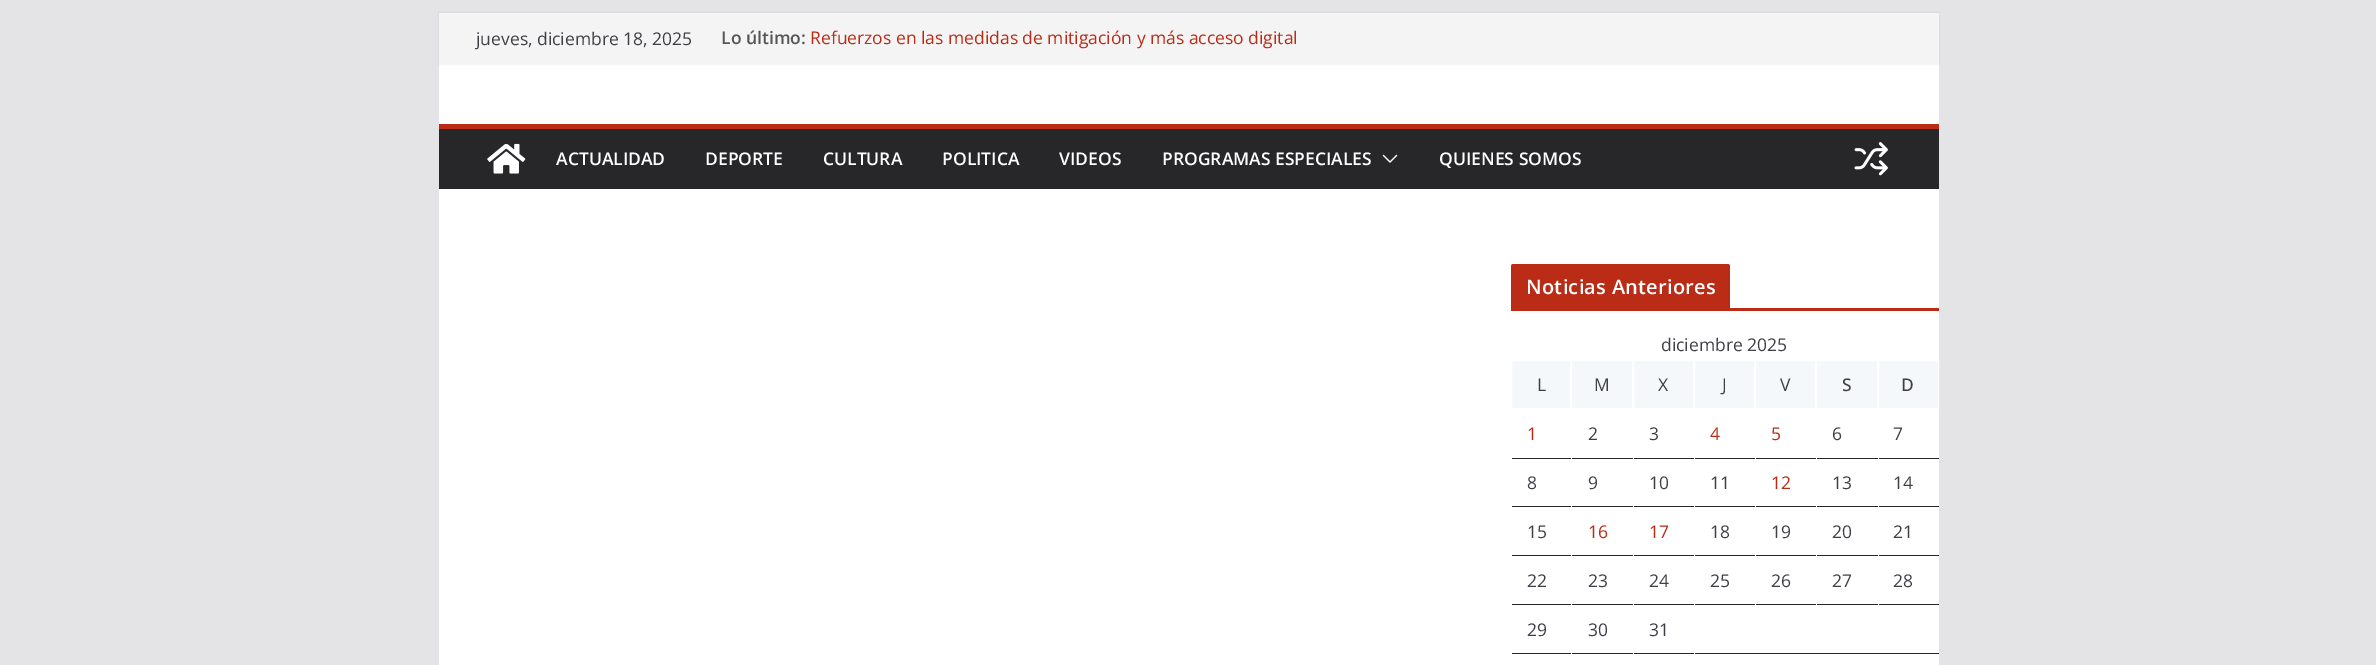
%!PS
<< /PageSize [2376 665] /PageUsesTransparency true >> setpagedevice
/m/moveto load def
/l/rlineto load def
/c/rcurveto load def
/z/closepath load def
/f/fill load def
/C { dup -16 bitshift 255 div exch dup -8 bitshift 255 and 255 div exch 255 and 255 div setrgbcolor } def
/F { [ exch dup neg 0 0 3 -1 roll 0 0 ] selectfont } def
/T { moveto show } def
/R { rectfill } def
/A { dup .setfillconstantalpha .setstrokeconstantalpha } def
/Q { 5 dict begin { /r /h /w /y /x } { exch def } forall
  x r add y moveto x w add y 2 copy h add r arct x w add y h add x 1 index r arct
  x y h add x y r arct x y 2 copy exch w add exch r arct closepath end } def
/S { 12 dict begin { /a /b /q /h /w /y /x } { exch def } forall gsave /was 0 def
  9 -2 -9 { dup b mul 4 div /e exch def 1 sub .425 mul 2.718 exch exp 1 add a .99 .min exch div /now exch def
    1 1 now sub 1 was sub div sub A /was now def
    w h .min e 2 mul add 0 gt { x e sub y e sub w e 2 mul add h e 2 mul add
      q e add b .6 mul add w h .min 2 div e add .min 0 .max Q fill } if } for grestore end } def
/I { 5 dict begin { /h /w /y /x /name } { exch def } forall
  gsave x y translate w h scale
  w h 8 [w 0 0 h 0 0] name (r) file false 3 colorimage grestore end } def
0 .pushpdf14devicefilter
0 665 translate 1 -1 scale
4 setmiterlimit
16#E4E4E7 C
0 0 2376 665 R
16#FFFFFF C
439 64 1500 60 R
16#000000 C
439 13 1500 51 0 1 .1 S
16#F4F4F5 C
439 13 1500 51 R
/OpenSans-Regular 17.5 F
16#3F3F46 C
(jueves, diciembre 18, 2025) 476 45 T
/OpenSans-SemiBold 17.5 F
16#555555 C
(Lo último:) 721 44 T
/OpenSans-Regular 17.5 F
16#BA2C16 C
(Refuerzos en las medidas de mitigación y más acceso digital) 810 44 T
16#27272A C
439 129 1500 60 R
16#BA2C16 C
439 124 1500 5 R
(1.rgb) 487 143 39 31 I
/OpenSans-SemiBold 17.5 F
16#FFFFFF C
(ACTUALIDAD) 556 165 T
(DEPORTE) 705 165 T
(CULTURA) 823 165 T
(POLITICA) 942 165 T
(VIDEOS) 1059 165 T
(PROGRAMAS ESPECIALES) 1162 165 T
(2.rgb) 1382 154 16 9 I
(QUIENES SOMOS) 1439 165 T
(3.rgb) 1854 142 34 34 I
439 189 1500 476 R
16#BA2C16 C
1511 308 428 3 R
1513.5 264 m 214 0 l 1.5 0 2.5 1 2.5 2.5 c 0 41.5 l -219 0 l 0 -41.5 l 0 -1.5 1 -2.5 2.5 -2.5 c z f
/OpenSans-SemiBold 20 F
16#FFFFFF C
1526 294 m .25 0 (Noticias Anteriores) ashow
/OpenSans-Regular 17.5 F
16#3F3F46 C
(diciembre 2025) 1661 351 T
16#F4F8FB C
1512 361 426 47 R
16#FFFFFF C
1511.5 360.5 59 48 rectstroke
/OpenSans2-Regular 17.5 F
16#3F3F46 C
(L) 1537 391 T
16#FFFFFF C
1571.5 360.5 61 48 rectstroke
16#3F3F46 C
(M) 1594 391 T
16#FFFFFF C
1633.5 360.5 60 48 rectstroke
16#3F3F46 C
(X) 1658 391 T
16#FFFFFF C
1694.5 360.5 60 48 rectstroke
16#3F3F46 C
(J) 1722 391 T
16#FFFFFF C
1755.5 360.5 60 48 rectstroke
16#3F3F46 C
(V) 1780 391 T
16#FFFFFF C
1816.5 360.5 61 48 rectstroke
/OpenSans-Medium 17.5 F
16#3F3F46 C
(S) 1842 391 T
16#FFFFFF C
1878.5 360.5 60 48 rectstroke
16#3F3F46 C
(D) 1901 391 T
16#27272A C
1511 458 428 1 R
16#FFFFFF C
1511 458 1 1 R
/OpenSans-Regular 17.5 F
16#BA2C16 C
(1) 1527 440 T
16#FFFFFF C
1571 458 1 1 R
16#3F3F46 C
(2) 1588 440 T
16#FFFFFF C
1633 458 1 1 R
16#3F3F46 C
(3) 1649 440 T
16#FFFFFF C
1694 458 1 1 R
16#BA2C16 C
(4) 1710 440 T
16#FFFFFF C
1755 458 1 1 R
16#BA2C16 C
(5) 1771 440 T
16#FFFFFF C
1816 458 1 1 R
16#3F3F46 C
(6) 1832 440 T
16#FFFFFF C
1878 458 1 1 R
16#3F3F46 C
(7) 1893 440 T
16#27272A C
1511 506 428 1 R
16#FFFFFF C
1511 506 1 2 R
16#3F3F46 C
(8) 1527 489 T
16#FFFFFF C
1571 506 1 2 R
16#3F3F46 C
(9) 1588 489 T
16#FFFFFF C
1633 506 1 2 R
16#3F3F46 C
(10) 1649 489 T
16#FFFFFF C
1694 506 1 2 R
16#3F3F46 C
(11) 1710 489 T
16#FFFFFF C
1755 506 1 2 R
16#BA2C16 C
(12) 1771 489 T
16#FFFFFF C
1816 506 1 2 R
16#3F3F46 C
(13) 1832 489 T
16#FFFFFF C
1878 506 1 2 R
16#3F3F46 C
(14) 1893 489 T
16#27272A C
1511 555 428 1 R
16#FFFFFF C
1511 555 1 1 R
16#3F3F46 C
(15) 1527 538 T
16#FFFFFF C
1571 555 1 1 R
16#BA2C16 C
(16) 1588 538 T
16#FFFFFF C
1633 555 1 1 R
16#BA2C16 C
(17) 1649 538 T
16#FFFFFF C
1694 555 1 1 R
16#3F3F46 C
(18) 1710 538 T
16#FFFFFF C
1755 555 1 1 R
16#3F3F46 C
(19) 1771 538 T
16#FFFFFF C
1816 555 1 1 R
16#3F3F46 C
(20) 1832 538 T
16#FFFFFF C
1878 555 1 1 R
16#3F3F46 C
(21) 1893 538 T
16#27272A C
1511 604 428 1 R
16#FFFFFF C
1511 604 1 1 R
16#3F3F46 C
(22) 1527 587 T
16#FFFFFF C
1571 604 1 1 R
16#3F3F46 C
(23) 1588 587 T
16#FFFFFF C
1633 604 1 1 R
16#3F3F46 C
(24) 1649 587 T
16#FFFFFF C
1694 604 1 1 R
16#3F3F46 C
(25) 1710 587 T
16#FFFFFF C
1755 604 1 1 R
16#3F3F46 C
(26) 1771 587 T
16#FFFFFF C
1816 604 1 1 R
16#3F3F46 C
(27) 1832 587 T
16#FFFFFF C
1878 604 1 1 R
16#3F3F46 C
(28) 1893 587 T
16#27272A C
1511 653 428 1 R
16#FFFFFF C
1511 653 1 1 R
16#3F3F46 C
(29) 1527 636 T
16#FFFFFF C
1571 653 1 1 R
16#3F3F46 C
(30) 1588 636 T
16#FFFFFF C
1633 653 1 1 R
16#3F3F46 C
(31) 1649 636 T
16#FFFFFF C
1694 653 1 1 R
.poppdf14devicefilter showpage
